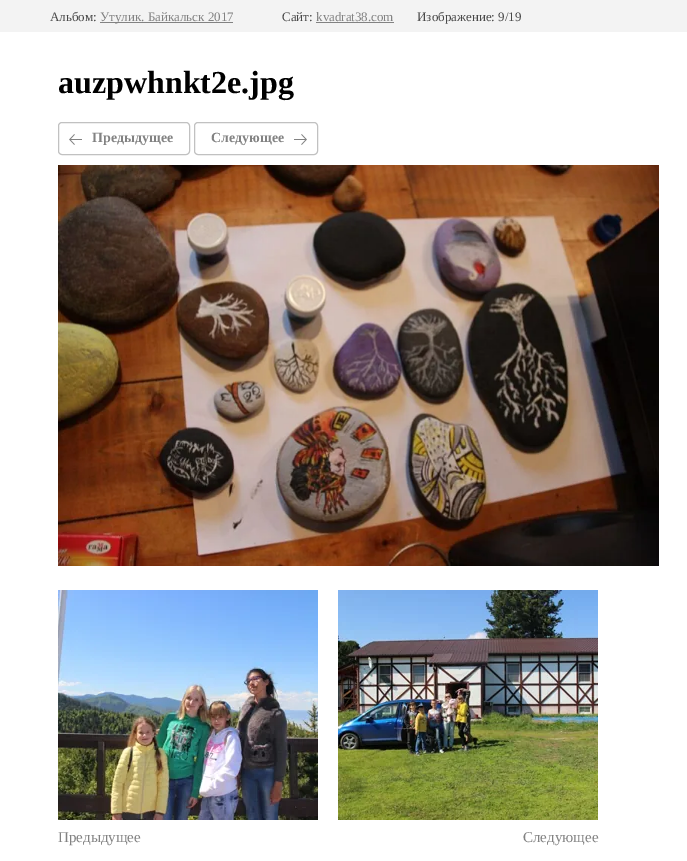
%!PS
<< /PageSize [687 861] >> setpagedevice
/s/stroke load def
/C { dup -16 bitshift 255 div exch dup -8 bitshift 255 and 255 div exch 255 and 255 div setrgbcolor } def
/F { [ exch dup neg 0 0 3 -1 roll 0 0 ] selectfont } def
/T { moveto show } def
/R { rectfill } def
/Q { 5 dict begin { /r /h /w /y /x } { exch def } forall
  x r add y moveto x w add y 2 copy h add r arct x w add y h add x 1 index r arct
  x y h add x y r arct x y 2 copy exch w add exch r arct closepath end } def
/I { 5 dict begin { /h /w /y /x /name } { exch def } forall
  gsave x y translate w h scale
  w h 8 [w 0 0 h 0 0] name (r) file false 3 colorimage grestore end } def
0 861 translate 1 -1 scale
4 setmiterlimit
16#FFFFFF C
0 0 687 861 R
16#F3F3F3 C
0 0 687 32 R
/LiberationSerif-Regular 13 F
16#484848 C
(Альбом:) 50 21 T
16#828282 C
100 22 133 1 R
(Утулик. Байкальск 2017) 100 21 T
16#484848 C
(Сайт:) 282 21 T
16#828282 C
(kvadrat38.com) 316 21 T
316 22 78 1 R
16#484848 C
(Изображение: 9/19) 417 21 T
/LiberationSerif-Bold 32 F
16#000000 C
(auzpwhnkt2e.jpg) 58 93 T
16#C1C1C1 C
58.5 122.5 131 32 3.5 Q s
(1.rgb) 69 134 13 11 I
/LiberationSerif-Bold 14 F
16#828282 C
(Предыдущее) 92 142 T
16#C1C1C1 C
194.5 122.5 123 32 3.5 Q s
16#828282 C
(Следующее) 211 142 T
(2.rgb) 294 134 13 11 I
(3.rgb) 58 165 601 401 I
(4.rgb) 58 590 260 230 I
/LiberationSerif-Regular 15 F
(Предыдущее) 58 842 T
(5.rgb) 338 590 260 230 I
(Следующее) 523 842 T
showpage
